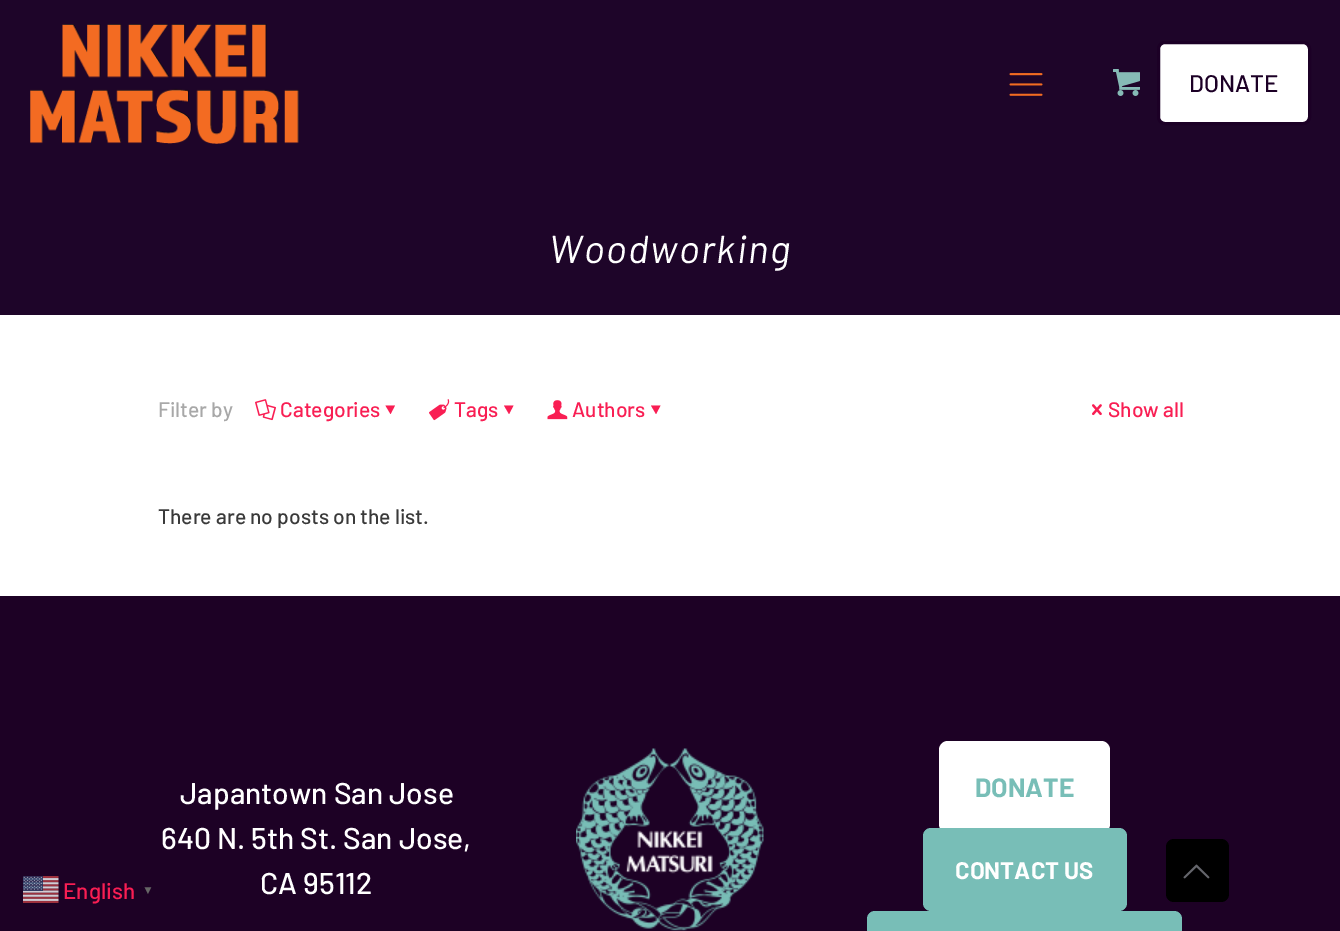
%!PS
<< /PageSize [1340 931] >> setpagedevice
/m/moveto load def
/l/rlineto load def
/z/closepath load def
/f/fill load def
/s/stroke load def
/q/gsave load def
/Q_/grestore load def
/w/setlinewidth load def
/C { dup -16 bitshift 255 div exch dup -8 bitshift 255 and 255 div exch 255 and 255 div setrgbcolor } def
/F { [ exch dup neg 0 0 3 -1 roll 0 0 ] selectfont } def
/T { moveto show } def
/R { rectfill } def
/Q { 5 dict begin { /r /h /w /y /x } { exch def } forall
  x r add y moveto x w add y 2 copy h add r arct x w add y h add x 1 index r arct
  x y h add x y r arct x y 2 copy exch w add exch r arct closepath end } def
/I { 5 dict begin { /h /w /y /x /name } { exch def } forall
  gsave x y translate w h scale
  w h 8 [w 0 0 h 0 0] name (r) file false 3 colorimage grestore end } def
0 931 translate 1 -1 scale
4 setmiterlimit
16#FFFFFF C
0 0 1340 931 R
16#1E0529 C
0 0 1340 315 R
(1.rgb) 30 24 269 120 I
(2.rgb) 1009 73 34 23 I
(3.rgb) 1113 69 27 27 I
16#FFFFFF C
1158.5 42.5 151 81 6.5 Q q f Q_
16#1C0026 C
3 w
s
/Barlow-Medium 24 F
(DONATE) 1189 92 T
/Barlow-Italic 39 F
16#FFFFFF C
549 263 m 1.5 0 (Woodworking) ashow
/Barlow-Medium 21 F
16#A8A8A8 C
(Filter by) 158 417 T
(4.rgb) 255 399 21 22 I
16#F91E53 C
(Categories) 280 417 T
395 405.5 m -4.5 8.5 l -5 -8.5 l z f
(5.rgb) 429 399 21 22 I
(Tags) 454 417 T
513.5 405.5 m -4.5 8.5 l -5 -8.5 l z f
(6.rgb) 547 400 21 20 I
(Authors) 572 417 T
660.5 405.5 m -4.5 8.5 l -5 -8.5 l z f
(7.rgb) 1092 404 10 12 I
(Show all) 1108 417 T
16#3A3A3A C
(There are no posts on the list.) 158 524 T
16#1D0125 C
0 596 1340 335 R
/Barlow-Medium 30 F
16#FFFFFF C
(Japantown San Jose) 180 804 T
(640 N. 5th St. San Jose,) 161 849 T
(CA 95112) 260 894 T
(8.rgb) 576 748 188 183 I
939 741 171 92 9 Q f
/Barlow-Bold 26.5 F
16#78BEB7 C
(DONATE) 975 797 T
923 828 204 83 8 Q f
/Barlow-Bold 24 F
16#FFFFFF C
(CONTACT US) 955 879 T
16#78BEB7 C
867 911 315 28 8 Q f
(9.rgb) 23 876 36 27 I
/Barlow-Medium 22.5 F
16#F91E53 C
(English) 63 899 T
/LiberationSans-Bold 12 F
16#666666 C
(▼) 142 894 T
16#000000 C
1166 839 63 63 8 Q f
(10.rgb) 1183 864 27 15 I
showpage
